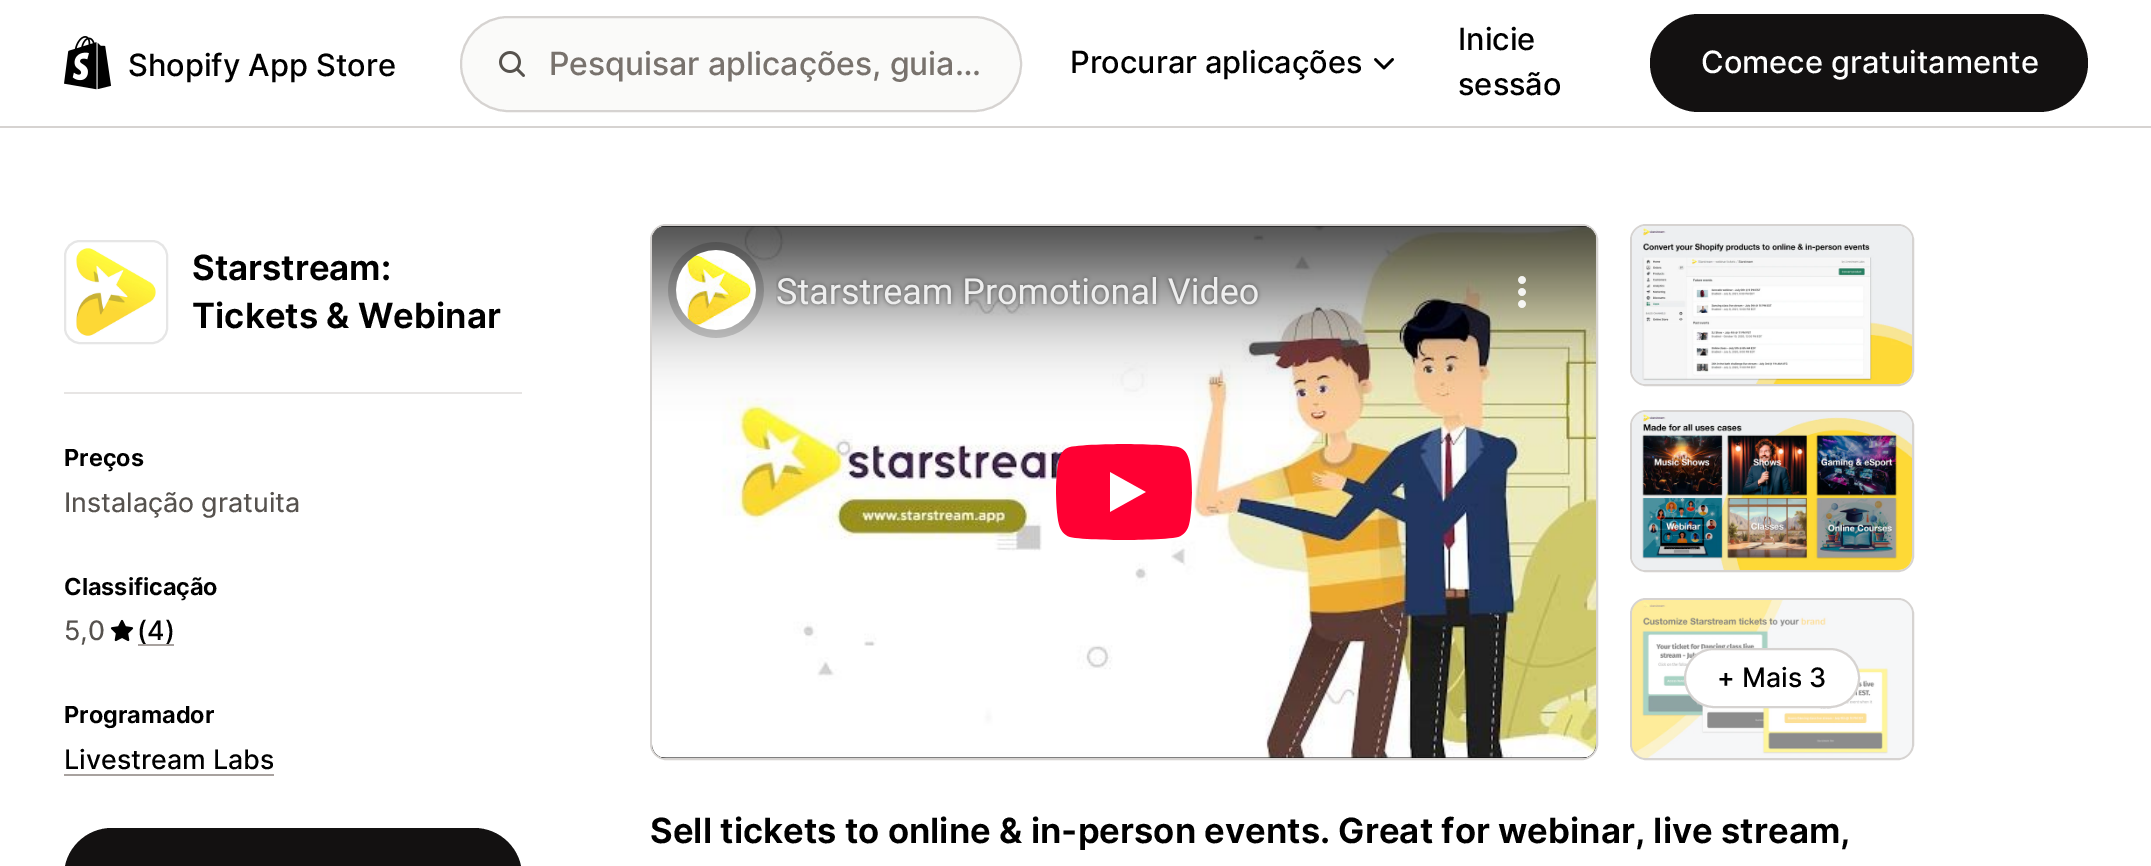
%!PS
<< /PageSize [2151 866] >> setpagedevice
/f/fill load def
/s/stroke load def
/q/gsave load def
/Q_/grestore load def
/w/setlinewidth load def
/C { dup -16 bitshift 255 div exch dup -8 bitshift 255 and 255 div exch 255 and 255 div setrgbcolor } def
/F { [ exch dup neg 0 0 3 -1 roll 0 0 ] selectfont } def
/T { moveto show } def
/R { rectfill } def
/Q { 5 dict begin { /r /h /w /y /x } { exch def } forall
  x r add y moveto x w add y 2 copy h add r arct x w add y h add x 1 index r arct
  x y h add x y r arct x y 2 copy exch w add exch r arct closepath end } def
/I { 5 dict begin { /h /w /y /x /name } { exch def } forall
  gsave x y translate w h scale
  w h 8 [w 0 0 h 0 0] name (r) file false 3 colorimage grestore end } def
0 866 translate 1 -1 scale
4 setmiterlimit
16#FFFFFF C
0 0 2151 866 R
16#D6D3D1 C
0 126 2151 2 R
(1.rgb) 64 36 48 54 I
/Inter-Medium 30.75 F
16#000000 C
(Shopify App Store) 128 76 T
16#FAFAF9 C
461 17 560 94 47 Q q f Q_
16#D6D3D1 C
2 w
s
(2.rgb) 499 51 26 26 I
/Inter-Medium 32 F
16#78726D C
(Pesquisar aplicações, guia…) 549 75 T
/Inter-Medium 30.75 F
16#000000 C
(Procurar aplicações) 1070 73 T
(3.rgb) 1374 58 20 12 I
(Inicie) 1458 50 T
(sessão) 1458 95 T
16#131111 C
1650 14 438 98 49 Q f
16#FFFFFF C
(Comece gratuitamente) 1701 73 T
(4.rgb) 76 248 80 88 I
16#E6E6E6 C
65 241 102 102 15 Q s
/Inter-SemiBold 34.75 F
16#000000 C
(Starstream:) 192 280 T
(Tickets & Webinar) 192 328 T
16#E7E5E4 C
64 392 458 2 R
/Inter-SemiBold 23.5 F
16#000000 C
(Preços) 64 466 T
/Inter-Regular 26.75 F
16#56524E C
(Instalação gratuita) 64 512 T
/Inter-SemiBold 23.5 F
16#000000 C
(Classificação) 64 595 T
/Inter-Regular 26.75 F
16#56524E C
(5,0) 64 640 T
(5.rgb) 110 619 24 23 I
/Inter-Medium 26.75 F
16#000000 C
(\(4\)) 137 640 T
16#A8A29F C
138 644 36 2 R
/Inter-SemiBold 23.5 F
16#000000 C
(Programador) 64 723 T
/Inter-Medium 26.75 F
(Livestream Labs) 64 769 T
16#A8A29F C
64 774 210 2 R
16#131111 C
64 828 458 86 48 Q f
16#D6D3D1 C
651 225 946 534 15 Q s
(6.rgb) 652 226 944 532 I
1631 225 282 160 15 Q s
(7.rgb) 1632 226 280 158 I
1631 411 282 160 15 Q s
(8.rgb) 1632 412 280 158 I
1631 599 282 160 15 Q s
(9.rgb) 1632 600 280 158 I
16#FFFFFF C
1685 649 174 58 29 Q q f Q_
16#D6D3D1 C
s
16#000000 C
(+ Mais 3) 1717 687 T
/Inter-SemiBold 34.75 F
(Sell tickets to online & in-person events. Great for webinar, live stream,) 650 843 T
showpage
